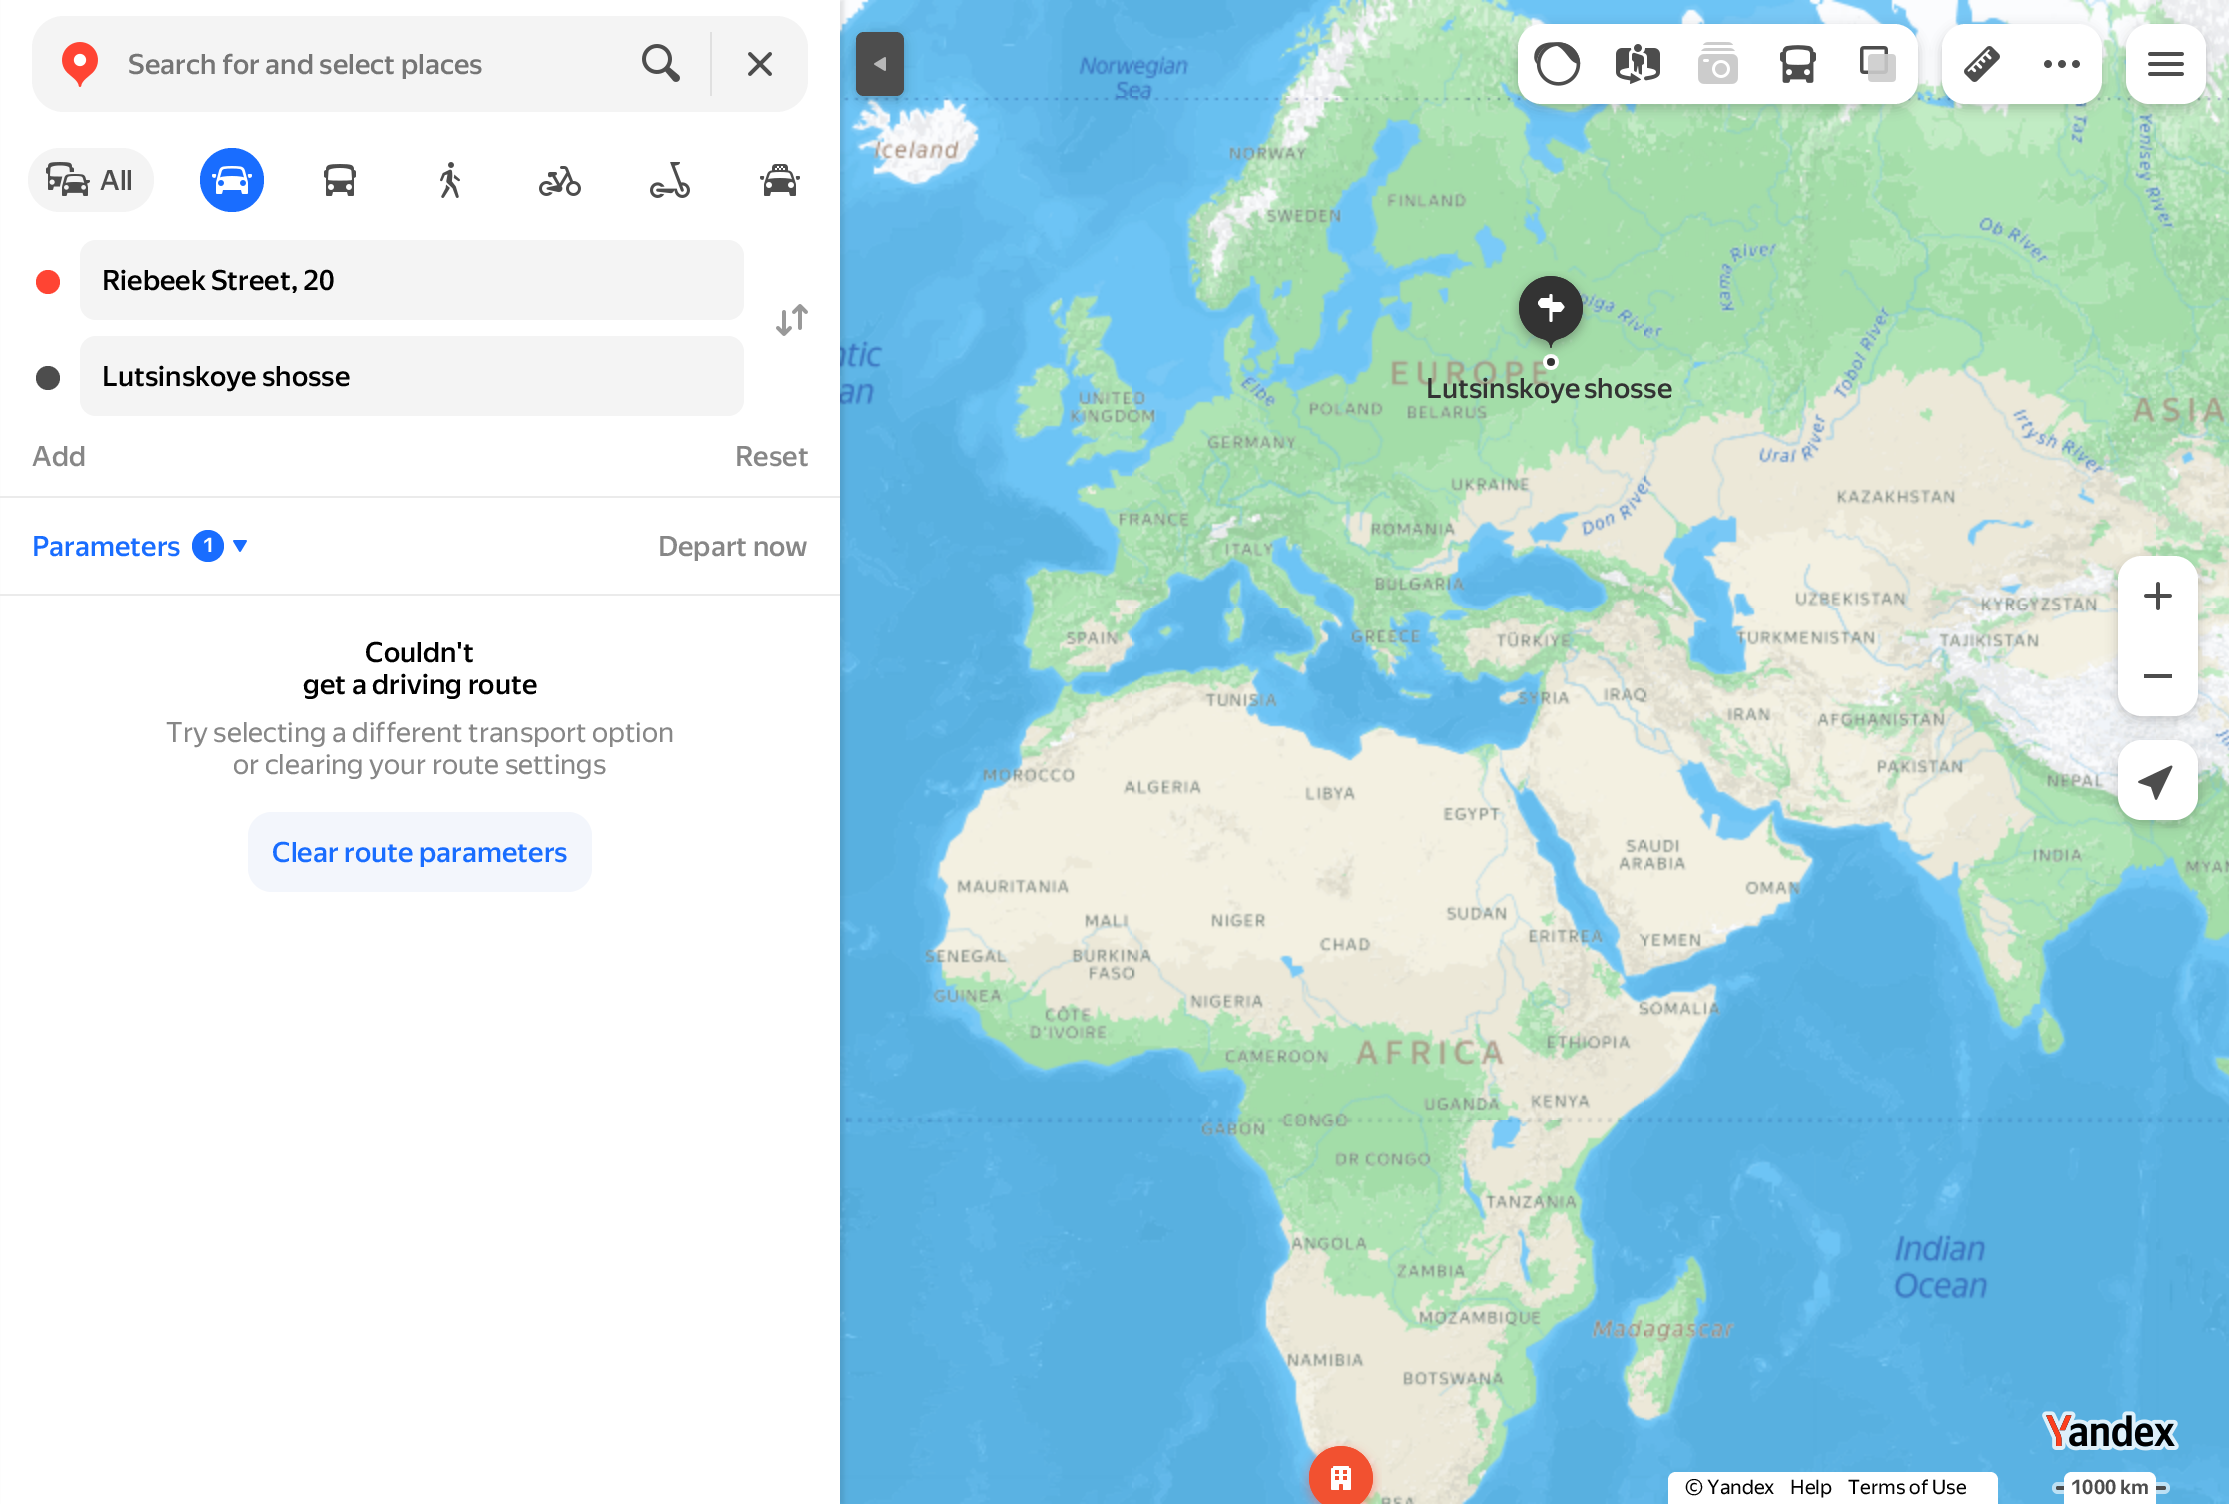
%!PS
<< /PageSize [2229 1504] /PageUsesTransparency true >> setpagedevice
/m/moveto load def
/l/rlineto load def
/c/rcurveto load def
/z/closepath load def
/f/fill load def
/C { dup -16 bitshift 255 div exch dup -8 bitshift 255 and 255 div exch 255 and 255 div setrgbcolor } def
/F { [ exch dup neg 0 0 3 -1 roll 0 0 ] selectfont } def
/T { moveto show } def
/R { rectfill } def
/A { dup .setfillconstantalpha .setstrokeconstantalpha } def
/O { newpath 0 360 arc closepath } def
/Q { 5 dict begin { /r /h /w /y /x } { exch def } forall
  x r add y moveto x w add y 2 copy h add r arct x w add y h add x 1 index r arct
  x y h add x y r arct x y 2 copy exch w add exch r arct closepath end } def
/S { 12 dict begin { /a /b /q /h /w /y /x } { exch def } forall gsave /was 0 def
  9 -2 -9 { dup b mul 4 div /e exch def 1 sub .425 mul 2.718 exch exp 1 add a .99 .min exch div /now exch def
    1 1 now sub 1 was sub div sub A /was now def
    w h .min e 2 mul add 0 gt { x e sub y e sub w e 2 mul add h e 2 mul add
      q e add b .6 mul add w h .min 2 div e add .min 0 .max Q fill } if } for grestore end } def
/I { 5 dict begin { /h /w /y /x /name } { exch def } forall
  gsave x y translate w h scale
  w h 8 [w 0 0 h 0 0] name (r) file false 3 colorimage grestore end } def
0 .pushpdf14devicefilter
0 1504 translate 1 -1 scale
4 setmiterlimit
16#FFFFFF C
0 0 2229 1504 R
(25.rgb) 840 0 292 96 I
(29.rgb) 840 96 292 512 I
(33.rgb) 840 608 292 512 I
(37.rgb) 840 1120 292 384 I
16#000000 C
4 0 840 1504 0 2 .1 S
856 36 48 64 8 6 .2 S
16#FFFFFF C
1 0 839 1504 R
16#F4F4F4 C
32 16 776 96 32 Q f
(1.rgb) 62 42 36 45 I
/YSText-Medium 28 F
16#757575 C
(Search for and select places) 128 74 T
(2.rgb) 642 44 38 38 I
16#E0E0E0 C
710 32 2 64 R
(3.rgb) 748 52 24 24 I
(26.rgb) 1132 0 512 96 I
(27.rgb) 1644 0 512 96 I
(30.rgb) 1132 96 512 512 I
(31.rgb) 1644 96 512 512 I
16#000000 C
1518 28 400 80 24 6 .2 S
16#FFFFFF C
1542 24 m 56 0 l 0 80 l -56 0 l -13.5 0 -24 -10.5 -24 -24 c 0 -32 l 0 -13.5 10.5 -24 24 -24 c z f
(4.rgb) 1534 42 47 44 I
1598 24 240 80 R
(5.rgb) 1616 44 44 40 I
1838 24 m 56 0 l 13.5 0 24 10.5 24 24 c 0 32 l 0 13.5 -10.5 24 -24 24 c -56 0 l z f
(6.rgb) 1860 46 36 36 I
(7.rgb) 1698 42 40 42 I
(8.rgb) 1780 45 36 38 I
16#000000 C
1942 28 160 80 24 6 .2 S
16#FFFFFF C
1966 24 m 56 0 l 0 80 l -56 0 l -13.5 0 -24 -10.5 -24 -24 c 0 -32 l 0 -13.5 10.5 -24 24 -24 c z f
(9.rgb) 1964 46 36 36 I
2022 24 m 56 0 l 13.5 0 24 10.5 24 24 c 0 32 l 0 13.5 -10.5 24 -24 24 c -56 0 l z f
(10.rgb) 2044 60 36 8 I
(28.rgb) 2156 0 73 96 I
(32.rgb) 2156 96 73 512 I
16#000000 C
2126 28 80 80 24 6 .2 S
16#FFFFFF C
2126 24 80 80 24 Q f
(11.rgb) 2148 52 36 24 I
(35.rgb) 1644 608 512 512 I
(36.rgb) 2156 608 73 512 I
16#000000 C
2118 560 80 160 24 6 .2 S
16#FFFFFF C
2142 556 m 32 0 l 13.5 0 24 10.5 24 24 c 0 56 l -80 0 l 0 -56 l 0 -13.5 10.5 -24 24 -24 c z f
(12.rgb) 2144 582 28 28 I
2118 636 m 80 0 l 0 56 l 0 13.5 -10.5 24 -24 24 c -32 0 l -13.5 0 -24 -10.5 -24 -24 c z f
16#4D4D4D C
2144 674 28 4 R
16#000000 C
2118 744 80 80 24 6 .2 S
16#FFFFFF C
2118 740 80 80 24 Q f
(13.rgb) 2138 765 35 35 I
16#4D4D4D C
856 32 48 64 8 Q f
(14.rgb) 874 57 12 14 I
16#F4F4F4 C
28 148 126 64 32 Q f
(15.rgb) 46 162 44 34 I
16#4D4D4D C
(All) 100 190 T
16#196DFF C
232 180 32 O f
(16.rgb) 212 166 40 28 I
(17.rgb) 324 164 32 32 I
(18.rgb) 440 162 20 36 I
(19.rgb) 539 166 42 30 I
(20.rgb) 650 162 40 36 I
(21.rgb) 760 164 40 32 I
16#FF4433 C
48 282 12 O f
16#F4F4F4 C
80 240 664 80 16 Q f
16#000000 C
(Riebeek Street, 20) 102 290 T
16#4D4D4D C
48 378 12 O f
16#F4F4F4 C
80 336 664 80 16 Q f
16#000000 C
(Lutsinskoye shosse) 102 386 T
(22.rgb) 776 304 32 32 I
16#878787 C
(Add) 32 466 T
(Reset) 735 466 T
16#EBEBEB C
0 496 840 2 R
16#196DFF C
(Parameters) 32 556 T
208 546 16 O f
/YSText-Bold 20 F
16#FFFFFF C
(1) 203 552 T
(23.rgb) 233 540 14 12 I
/YSText-Medium 28 F
16#878787 C
(Depart now) 658 556 T
16#EBEBEB C
0 594 840 2 R
16#000000 C
(Couldn't) 365 662 T
(get a driving route) 303 694 T
/YSText-Regular 28 F
16#878787 C
(Try selecting a different transport option) 166 742 T
(or clearing your route settings) 233 774 T
16#F3F6FC C
248 812 344 80 24 Q f
/YSText-Medium 28 F
16#196DFF C
(Clear route parameters) 272 862 T
(39.rgb) 1644 1120 512 384 I
(40.rgb) 2156 1120 73 384 I
(24.rgb) 2042 1411 137 40 I
16#FFFFFF C
1676 1472 m 314 0 l 4.5 0 8 3.5 8 8 c 0 24 l -330 0 l 0 -24 l 0 -4.5 3.5 -8 8 -8 c z f
/YSText-Regular 20 F
16#000000 C
(© Yandex) 1685 1494 T
(Help) 1790 1494 T
(Terms of Use) 1848 1494 T
0.6 A
16#FFFFFF C
2052 1482 118 12 6 Q f
1 A
16#4D4D4D C
2056 1486 110 4 2 Q f
16#FFFFFF C
2072 1472 m 76 0 l 4.5 0 8 3.5 8 8 c 0 24 l -92 0 l 0 -24 l 0 -4.5 3.5 -8 8 -8 c z f
/YSText-Bold 20 F
16#4D4D4D C
(1000 km) 2071 1494 T
(34.rgb) 1132 608 512 512 I
(38.rgb) 1132 1120 512 384 I
(41.rgb) 1510 271 82 99 I
(42.rgb) 1538 294 27 28 I
/YSText-Medium 28 F
16#333333 C
(Lutsinskoye) 1426 398 T
(shosse) 1584 398 T
(43.rgb) 1299 1441 83 63 I
(44.rgb) 1331 1466 20 24 I
.poppdf14devicefilter showpage
